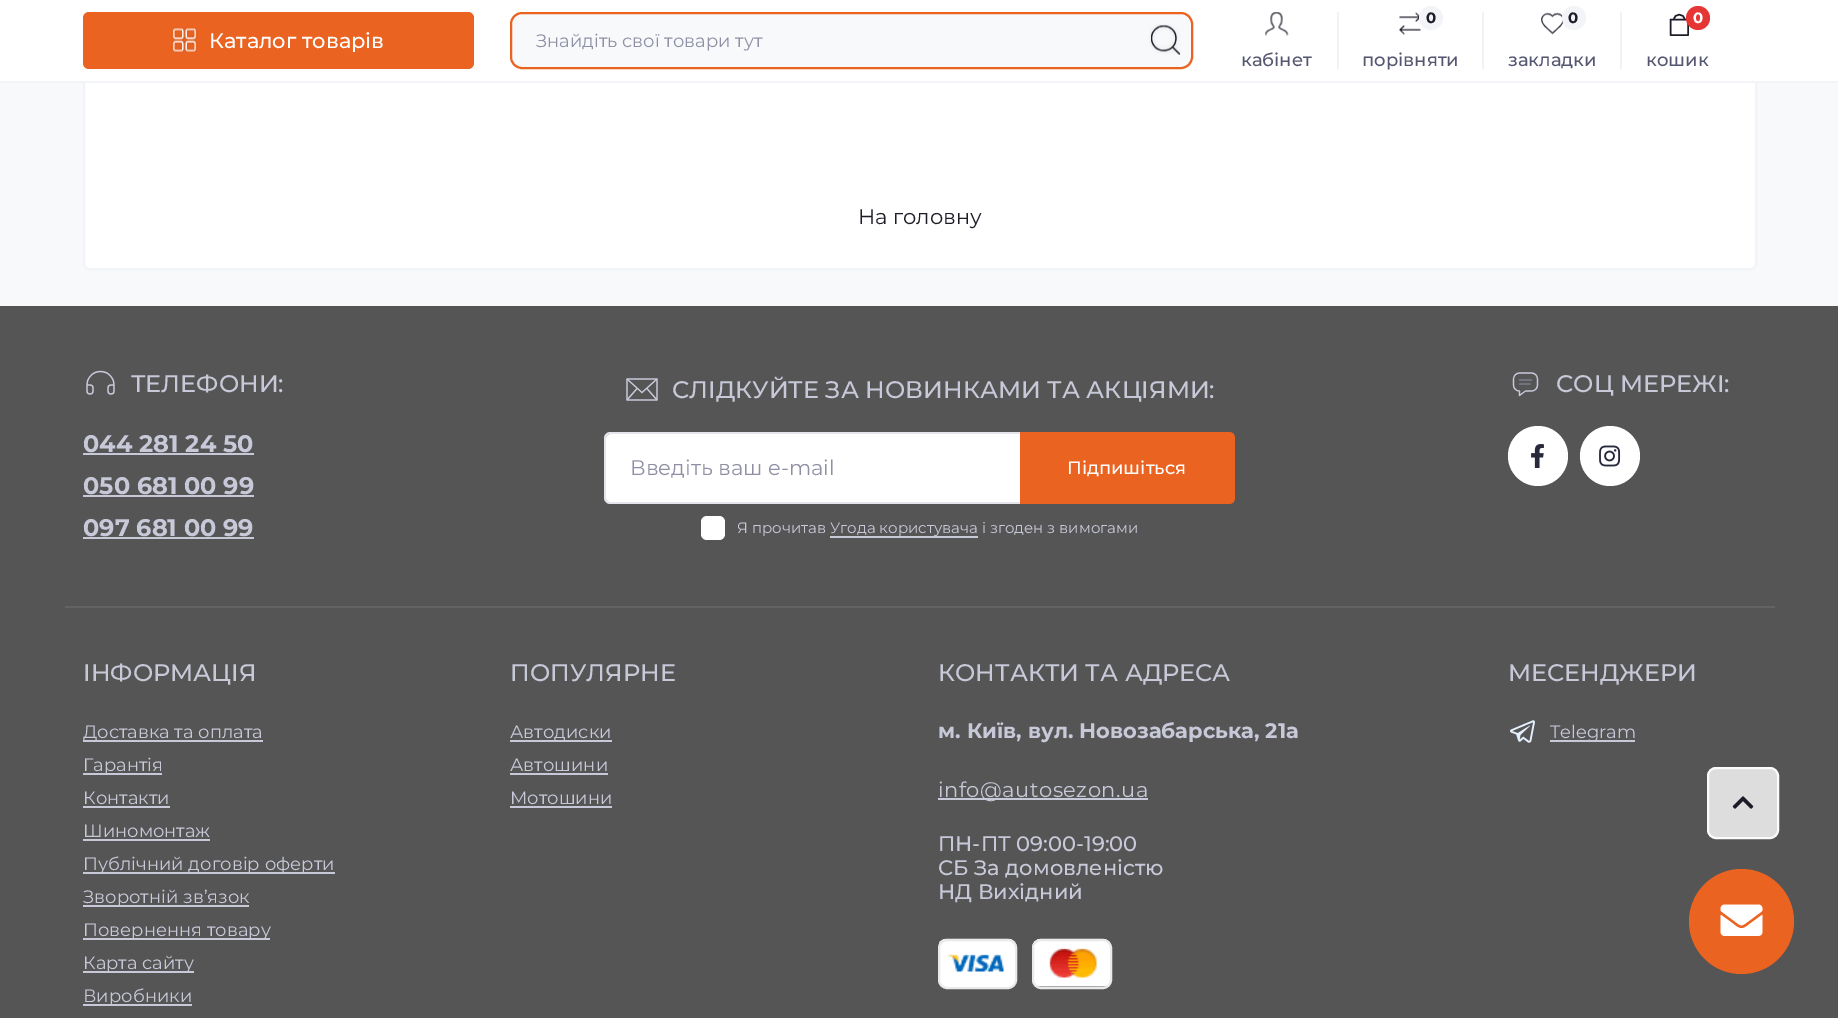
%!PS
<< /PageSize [1838 1018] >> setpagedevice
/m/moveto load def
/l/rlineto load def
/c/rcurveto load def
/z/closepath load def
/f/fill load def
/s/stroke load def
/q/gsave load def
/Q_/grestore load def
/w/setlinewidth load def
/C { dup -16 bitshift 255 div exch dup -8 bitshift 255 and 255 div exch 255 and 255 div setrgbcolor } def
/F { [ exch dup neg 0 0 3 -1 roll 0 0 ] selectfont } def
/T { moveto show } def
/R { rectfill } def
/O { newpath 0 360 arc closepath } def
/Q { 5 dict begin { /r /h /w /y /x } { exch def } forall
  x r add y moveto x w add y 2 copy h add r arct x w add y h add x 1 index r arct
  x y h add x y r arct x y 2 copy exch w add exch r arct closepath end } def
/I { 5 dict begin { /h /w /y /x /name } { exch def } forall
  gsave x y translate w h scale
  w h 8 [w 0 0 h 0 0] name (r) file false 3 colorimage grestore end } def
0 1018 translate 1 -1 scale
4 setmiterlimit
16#F8F9FA C
0 0 1838 1018 R
16#FFFFFF C
84 -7 1672 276 5 Q q f Q_
16#F2F4F8 C
2 w
s
16#FFFFFF C
0 0 1838 81 R
16#F2F4F8 C
0 81 1838 2 R
16#EB6320 C
83 12 391 57 6 Q f
(1.rgb) 171 27 27 26 I
/Montserrat-Medium 21 F
16#FFFFFF C
(Каталог товарів) 209 48 T
16#F8F9FA C
511 13 681 55 11 Q q f Q_
16#EB6320 C
s
/Montserrat-Regular 18 F
16#8F90A6 C
(Знайдіть свої товари тут) 536 47 T
(2.rgb) 1149 24 32 31 I
(3.rgb) 1265 12 24 24 I
/Montserrat-Medium 18 F
16#555770 C
(кабінет) 1241 66 T
16#F2F2F5 C
1337 12 2 57 R
(4.rgb) 1399 12 22 23 I
16#F2F4F8 C
1431 18 12 O f
/Montserrat-Bold 15 F
16#1C1C28 C
(0) 1426 23 T
/Montserrat-Medium 18 F
16#555770 C
(порівняти) 1362 66 T
16#F2F2F5 C
1482 12 2 57 R
(5.rgb) 1541 12 23 23 I
16#F2F4F8 C
1574 18 12 O f
/Montserrat-Bold 15 F
16#1C1C28 C
(0) 1568 23 T
/Montserrat-Medium 18 F
16#555770 C
(закладки) 1508 66 T
16#F2F2F5 C
1620 12 2 57 R
16#1C1C28 C
1.5 w
1 setlinecap
1 setlinejoin
1670.5 19.5 m 17.5 0 l 0 15.5 l -17.5 0 l z 1674 19.5 m 0 -6.5 10.5 -6.5 10.5 0 c s
16#E53535 C
1698 18 12 O f
/Montserrat-Bold 15 F
16#FFFFFF C
(0) 1693 23 T
/Montserrat-Medium 18 F
16#555770 C
(кошик) 1646 66 T
/Montserrat-Regular 21 F
16#1C1C28 C
(На головну) 858 224 T
16#555555 C
0 306 1838 712 R
(6.rgb) 86 370 29 25 I
/Montserrat-Medium 24 F
16#C7C9D9 C
(ТЕЛЕФОНИ:) 131 392 T
/Montserrat-Bold 24 F
(044 281 24 50) 83 452 T
83 453 171 2 R
(050 681 00 99) 83 494 T
83 495 171 2 R
(097 681 00 99) 83 536 T
83 537 171 2 R
(7.rgb) 626 378 32 23 I
/Montserrat-Medium 24 F
(СЛІДКУЙТЕ ЗА НОВИНКАМИ ТА АКЦІЯМИ:) 672 398 T
16#FFFFFF C
611 434 m 411 0 l 0 69 l -411 0 l -3 0 -5 -2 -5 -5 c 0 -59 l 0 -3 2 -5 5 -5 c z f
16#E4E4EB C
610 432 m 412 0 l 0 72 l -412 0 l -3 0 -6 -3 -6 -6 c 0 -60 l 0 -3 3 -6 6 -6 c z 610 434 m 412 0 l 0 68 l -412 0 l -2 0 -4 -2 -4 -4 c 0 -60 l 0 -2 2 -4 4 -4 c z eofill
/Montserrat-Regular 21 F
16#8F90A6 C
(Введіть ваш e-mail) 630 475 T
16#EB6320 C
1020 432 m 209 0 l 3.5 0 6 2.5 6 6 c 0 60 l 0 3.5 -2.5 6 -6 6 c -209 0 l z f
/Montserrat-Medium 18 F
16#FFFFFF C
(Підпишіться) 1067 474 T
701 516 24 24 6 Q f
/Montserrat-Regular 15 F
16#C7C9D9 C
(Я прочитав Угода користувача і згоден з вимогами) 737 533 T
830 536 148 2 R
(8.rgb) 1512 372 27 25 I
/Montserrat-Medium 24 F
(СОЦ МЕРЕЖІ:) 1556 392 T
16#FFFFFF C
1538 456 30 O f
(9.rgb) 1531 444 13 24 I
1610 456 30 O f
(10.rgb) 1599 445 22 22 I
16#636363 C
65 606 1710 2 R
16#C7C9D9 C
(ІНФОРМАЦІЯ) 83 681 T
83 740 180 2 R
/Montserrat-Regular 18 F
(Доставка та оплата) 83 738 T
83 773 79 2 R
(Гарантія) 83 771 T
(Контакти) 83 804 T
83 806 87 2 R
(Шиномонтаж) 83 837 T
83 839 127 2 R
83 872 252 2 R
(Публічний договір оферти) 83 870 T
83 905 166 2 R
(Зворотній зв’язок) 83 903 T
83 938 187 2 R
(Повернення товару) 83 936 T
83 971 111 2 R
(Карта сайту) 83 969 T
83 1004 109 2 R
(Виробники) 83 1002 T
/Montserrat-Medium 24 F
(ПОПУЛЯРНЕ) 510 681 T
510 740 102 2 R
/Montserrat-Regular 18 F
(Автодиски) 510 738 T
(Автошини) 510 771 T
510 773 98 2 R
(Мотошини) 510 804 T
510 806 102 2 R
/Montserrat-Medium 24 F
(КОНТАКТИ ТА АДРЕСА) 938 681 T
/Montserrat-Bold 21 F
(м. Київ, вул. Новозабарська, 21а) 938 738 T
938 798 210 2 R
/Montserrat-Regular 21 F
938 797 m .5 0 (info@autosezon.ua) ashow
/Montserrat-Medium 21 F
(ПН-ПТ 09:00-19:00) 938 851 T
(СБ За домовленістю) 938 875 T
(НД Вихідний) 938 899 T
(11.rgb) 939 938 78 50 I
16#E9E9E9 C
2 w
0 setlinecap
0 setlinejoin
939 940 77 48 8 Q s
(12.rgb) 1032 938 80 49 I
1033 940 78 48 8 Q s
/Montserrat-Medium 24 F
16#C7C9D9 C
(МЕСЕНДЖЕРИ) 1508 681 T
(13.rgb) 1510 720 25 23 I
1550 740 85 2 R
/Montserrat-Regular 18 F
(Telegram) 1550 738 T
16#EB6320 C
1741.5 921.5 52.5 O f
(14.rgb) 1720 904 43 32 I
16#DDDDDD C
1708 768 70 70 8 Q q f Q_
16#FBFBFB C
s
(15.rgb) 1732 796 22 13 I
showpage
